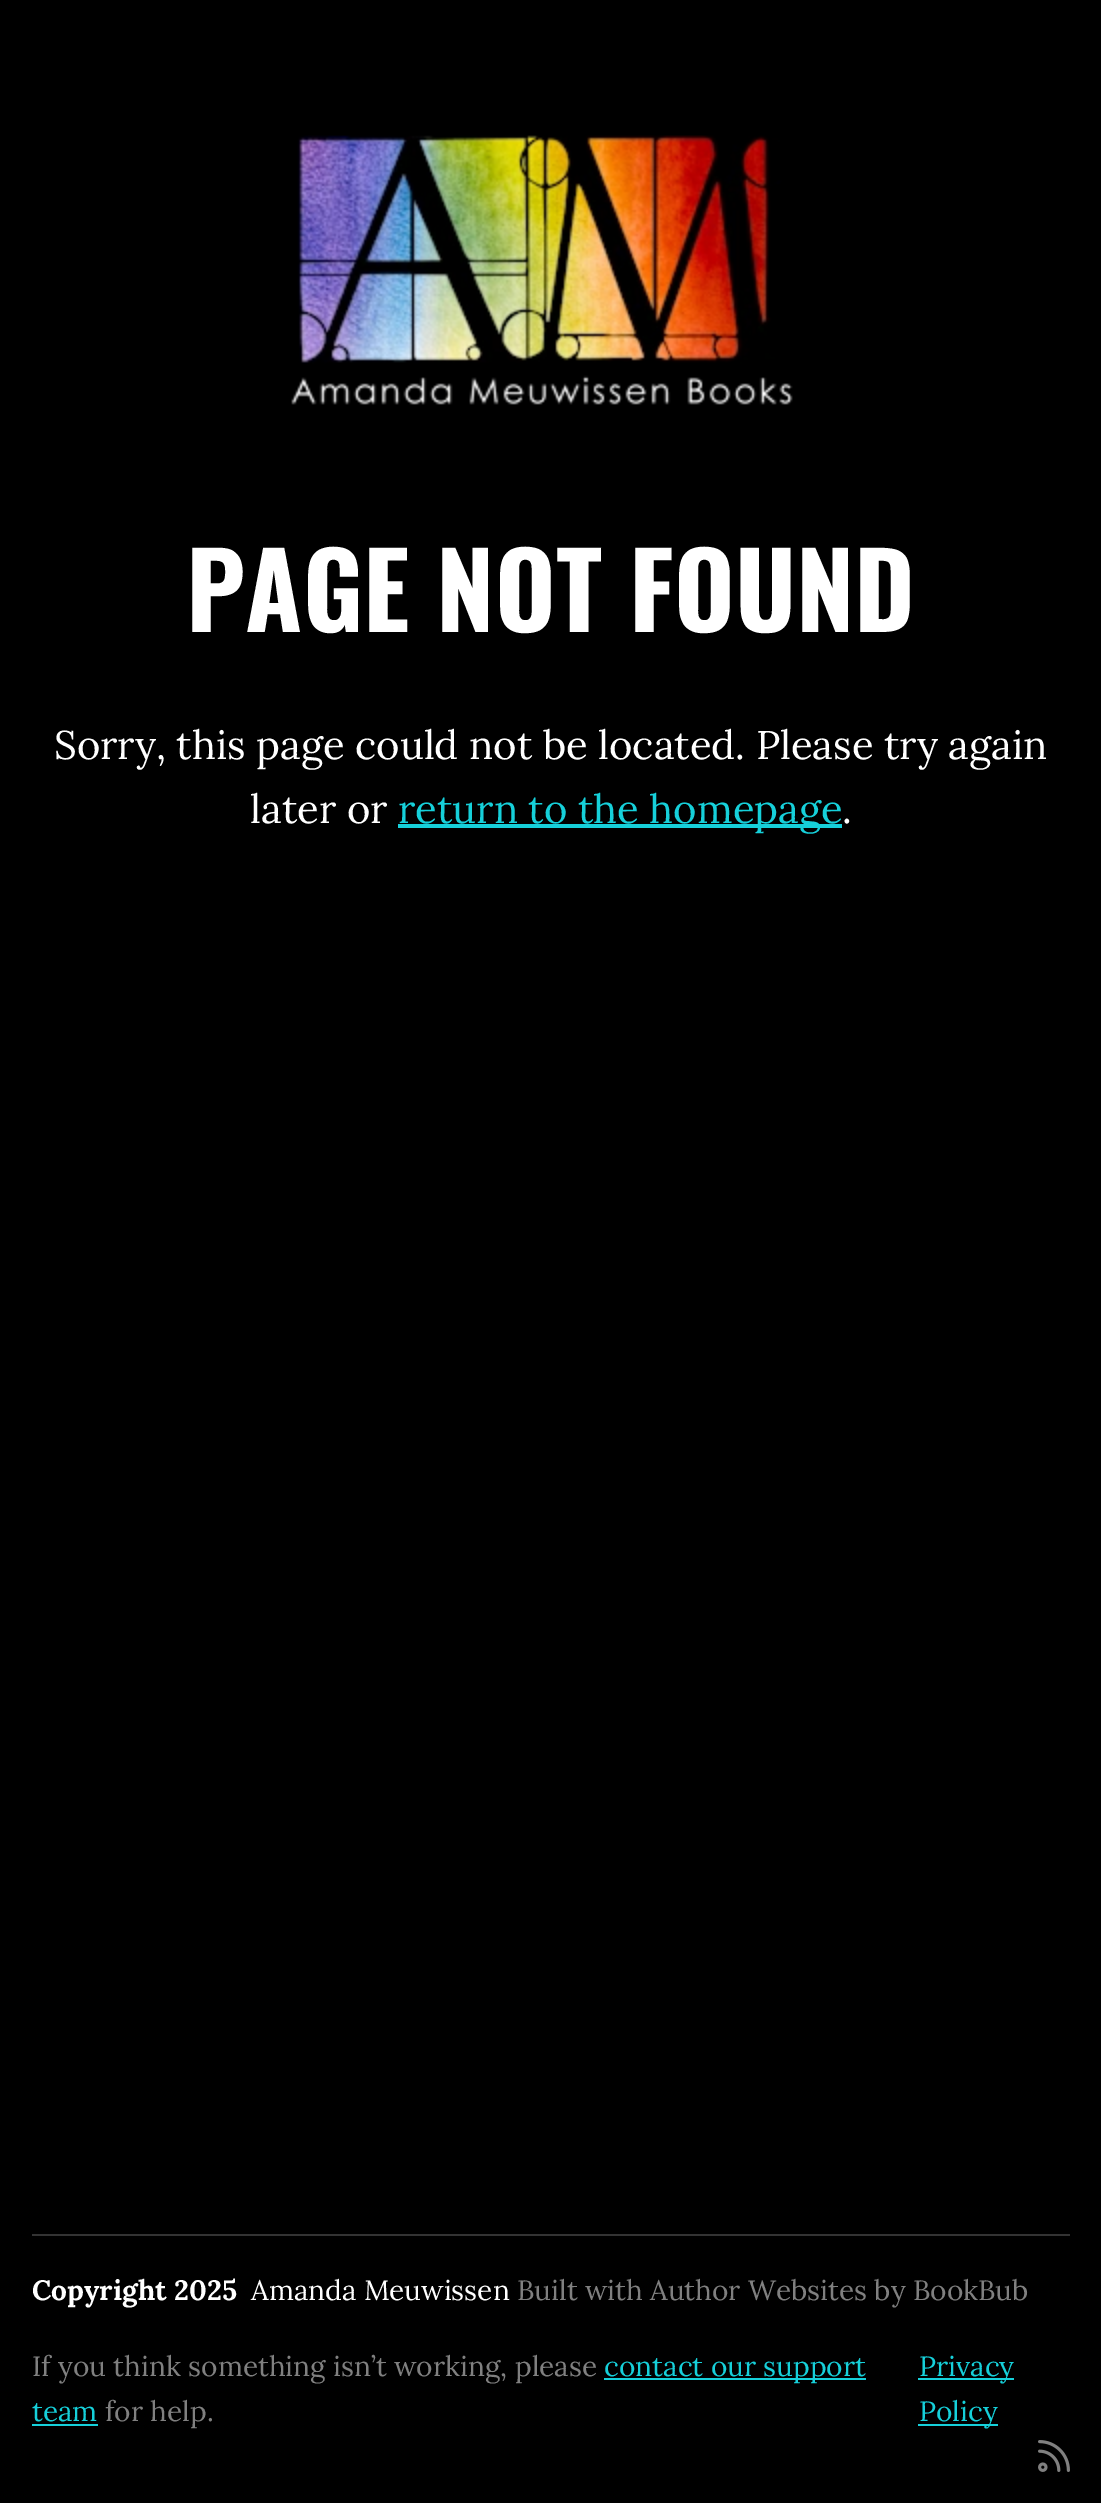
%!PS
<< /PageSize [1101 2503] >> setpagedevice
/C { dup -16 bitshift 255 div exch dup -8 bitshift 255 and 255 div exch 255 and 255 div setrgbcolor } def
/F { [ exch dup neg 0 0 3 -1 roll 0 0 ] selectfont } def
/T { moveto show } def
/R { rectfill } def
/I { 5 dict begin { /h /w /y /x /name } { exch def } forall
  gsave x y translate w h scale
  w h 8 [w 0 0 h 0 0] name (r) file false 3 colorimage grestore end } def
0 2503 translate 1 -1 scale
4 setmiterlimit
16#000000 C
0 0 1101 2503 R
(1.rgb) 291 135 502 270 I
/Oswald-Bold 104 F
16#FFFFFF C
(PAGE NOT FOUND) 186 632 T
/Lora-Regular 40 F
(Sorry, this page could not be located. Please try again) 54 759 T
(later or) 250 823 T
16#16D0DA C
398 824 444 4 R
(return to the homepage) 398 823 T
16#FFFFFF C
(.) 842 823 T
16#333333 C
32 2234 1038 2 R
/Lora-Bold 28 F
16#FFFFFF C
(Copyright 2025) 32 2300 T
/Lora-Regular 28 F
(Amanda Meuwissen) 251 2300 T
16#808080 C
(Built with Author Websites by BookBub) 517 2300 T
(If you think something isn’t working, please) 32 2376 T
16#16D0DA C
604 2378 262 2 R
(contact our support) 604 2376 T
(team) 32 2421 T
32 2424 66 2 R
16#808080 C
(for help.) 105 2421 T
16#16D0DA C
918 2378 96 2 R
(Privacy) 919 2376 T
918 2424 80 2 R
(Policy) 919 2421 T
(2.rgb) 1038 2440 32 32 I
showpage
